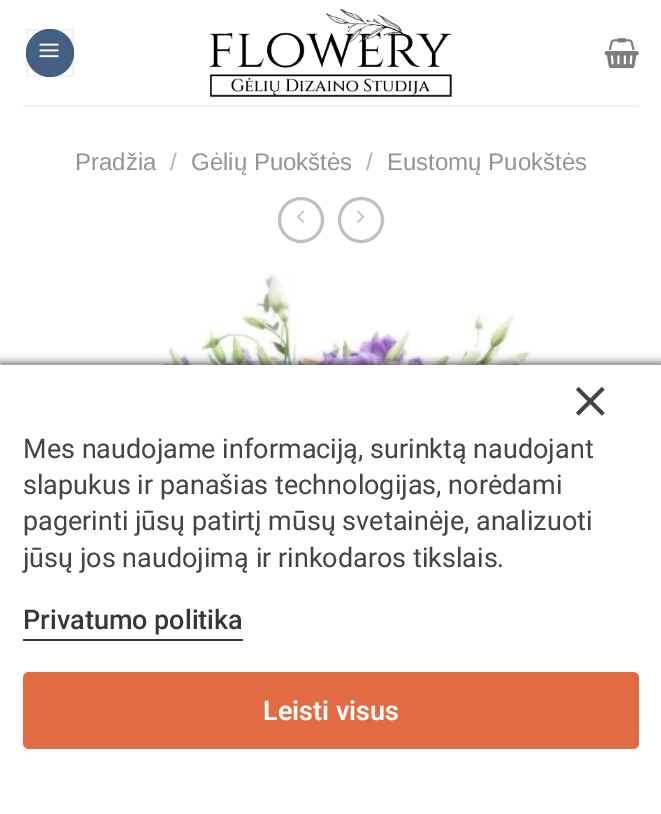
%!PS
<< /PageSize [661 814] /PageUsesTransparency true >> setpagedevice
/f/fill load def
/s/stroke load def
/w/setlinewidth load def
/C { dup -16 bitshift 255 div exch dup -8 bitshift 255 and 255 div exch 255 and 255 div setrgbcolor } def
/F { [ exch dup neg 0 0 3 -1 roll 0 0 ] selectfont } def
/T { moveto show } def
/R { rectfill } def
/A { dup .setfillconstantalpha .setstrokeconstantalpha } def
/O { newpath 0 360 arc closepath } def
/Q { 5 dict begin { /r /h /w /y /x } { exch def } forall
  x r add y moveto x w add y 2 copy h add r arct x w add y h add x 1 index r arct
  x y h add x y r arct x y 2 copy exch w add exch r arct closepath end } def
/S { 12 dict begin { /a /b /q /h /w /y /x } { exch def } forall gsave /was 0 def
  9 -2 -9 { dup b mul 4 div /e exch def 1 sub .425 mul 2.718 exch exp 1 add a .99 .min exch div /now exch def
    1 1 now sub 1 was sub div sub A /was now def
    w h .min e 2 mul add 0 gt { x e sub y e sub w e 2 mul add h e 2 mul add
      q e add b .6 mul add w h .min 2 div e add .min 0 .max Q fill } if } for grestore end } def
/I { 5 dict begin { /h /w /y /x /name } { exch def } forall
  gsave x y translate w h scale
  w h 8 [w 0 0 h 0 0] name (r) file false 3 colorimage grestore end } def
0 .pushpdf14devicefilter
0 814 translate 1 -1 scale
4 setmiterlimit
16#FFFFFF C
0 0 661 814 R
16#446084 C
50 53 24 O f
0.05 A
16#000000 C
2 w
27 30 46 46 rectstroke
1 A
(1.rgb) 39 43 20 15 I
(2.rgb) 209 8 243 89 I
(3.rgb) 604 38 35 31 I
16#F1F1F1 C
23 105 616 2 R
/LiberationSans-Regular 24 F
16#949494 C
(Pradžia) 75 170 T
16#B2B2B2 C
(/) 170 170 T
16#949494 C
(Gėlių Puokštės) 191 170 T
16#B2B2B2 C
(/) 366 170 T
16#949494 C
(Eustomų Puokštės) 387 170 T
16#C0C0C0 C
3 w
301 220 21.5 O s
(4.rgb) 297 210 8 13 I
361 220 21.5 O s
(5.rgb) 357 210 8 13 I
(6.rgb) 80 273 474 92 I
16#000000 C
0 362 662 450 0 4 .5 S
16#FFFFFF C
0 365 661 449 R
(7.rgb) 575 386 30 30 I
/Roboto-Regular 27 F
16#444444 C
(Mes naudojame informaciją, surinktą naudojant) 23 458 T
(slapukus ir panašias technologijas, norėdami) 23 494 T
(pagerinti jūsų patirtį mūsų svetainėje, analizuoti) 23 530 T
(jūsų jos naudojimą ir rinkodaros tikslais.) 23 567 T
/Roboto-Medium 27 F
16#373737 C
(Privatumo politika) 23 629 T
23 639 220 2 R
16#E16B43 C
23 672 616 77 6 Q f
/Roboto-SemiBold 27 F
16#FFFFFF C
(Leisti visus) 263 720 T
.poppdf14devicefilter showpage
